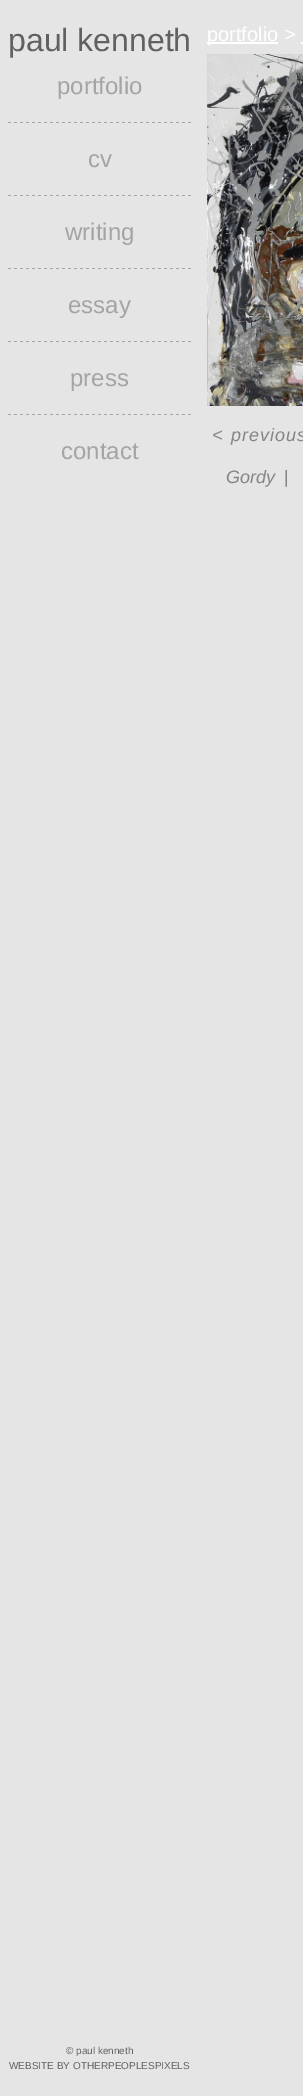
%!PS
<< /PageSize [303 2096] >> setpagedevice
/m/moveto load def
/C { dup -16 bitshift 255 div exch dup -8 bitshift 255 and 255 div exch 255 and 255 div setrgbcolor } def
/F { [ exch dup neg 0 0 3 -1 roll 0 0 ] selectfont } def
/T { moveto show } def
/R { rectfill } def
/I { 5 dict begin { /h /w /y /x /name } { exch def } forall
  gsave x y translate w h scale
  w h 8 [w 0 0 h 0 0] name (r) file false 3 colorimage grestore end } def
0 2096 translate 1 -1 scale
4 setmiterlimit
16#E5E5E5 C
0 0 303 2096 R
/LiberationSans-Regular 32 F
16#616161 C
(paul kenneth) 8 51 T
/LiberationSans-Regular 24 F
16#A5A4A4 C
(portfolio) 57 94 T
(1.rgb) 8 122 183 1 I
(cv) 88 167 T
(1.rgb) 8 195 183 1 I
(writing) 65 240 T
(1.rgb) 8 268 183 1 I
(essay) 68 313 T
(1.rgb) 8 341 183 1 I
(press) 70 386 T
(1.rgb) 8 414 183 1 I
(contact) 61 459 T
/LiberationSans-Regular 10 F
16#616161 C
(© paul kenneth) 66 2054 T
(WEBSITE BY OTHERPEOPLESPIXELS) 9 2069 T
16#FFFFFF C
207 42 71 2 R
/LiberationSans-Regular 20 F
(portfolio >) 207 41 T
301 42 2 2 R
(2.rgb) 207 54 96 352 I
/LiberationSans-Italic 18 F
16#868585 C
212 441 m 1 0 (<) ashow
231 441 m 1 0 (previous) ashow
(Gordy) 226 483 T
/LiberationSans-Regular 18 F
(|) 284 483 T
showpage
